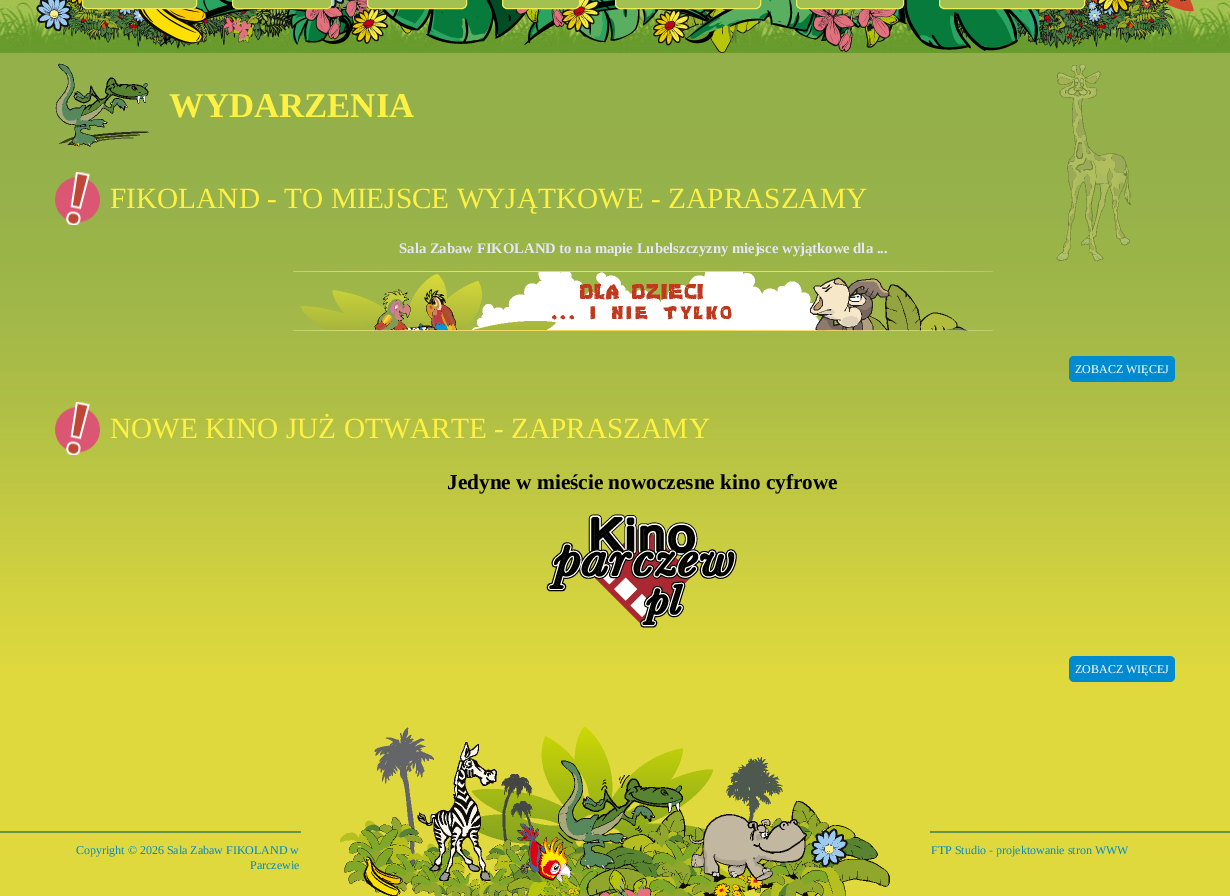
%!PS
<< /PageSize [1230 896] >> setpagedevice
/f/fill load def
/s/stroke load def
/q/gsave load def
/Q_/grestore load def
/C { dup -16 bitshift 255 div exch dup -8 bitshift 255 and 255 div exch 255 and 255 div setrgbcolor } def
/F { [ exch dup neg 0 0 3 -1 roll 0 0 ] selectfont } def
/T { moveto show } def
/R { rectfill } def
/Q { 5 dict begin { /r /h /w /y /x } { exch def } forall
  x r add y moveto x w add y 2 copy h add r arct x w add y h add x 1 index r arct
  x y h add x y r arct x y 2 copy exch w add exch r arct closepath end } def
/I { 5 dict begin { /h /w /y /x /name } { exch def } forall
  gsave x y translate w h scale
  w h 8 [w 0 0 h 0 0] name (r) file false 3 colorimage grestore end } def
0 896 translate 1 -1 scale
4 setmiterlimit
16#E0D93D C
0 0 1230 896 R
(1.rgb) 0 53 1230 611 I
(2.rgb) 0 0 1230 53 I
(3.rgb) 36 0 1158 53 I
16#A2C150 C
82.5 -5.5 114 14 4.5 Q q f Q_
16#F3EC59 C
s
16#A2C150 C
232.5 -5.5 99 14 4.5 Q q f Q_
16#F3EC59 C
s
16#A2C150 C
367.5 -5.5 99 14 4.5 Q q f Q_
16#F3EC59 C
s
16#A2C150 C
502.5 -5.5 77 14 4.5 Q q f Q_
16#F3EC59 C
s
16#A2C150 C
615.5 -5.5 145 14 4.5 Q q f Q_
16#F3EC59 C
s
16#A2C150 C
796.5 -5.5 107 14 4.5 Q q f Q_
16#F3EC59 C
s
16#A2C150 C
939.5 -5.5 145 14 4.5 Q q f Q_
16#F3EC59 C
s
(4.rgb) 55 63 94 84 I
/LiberationSerif-Bold 34.75 F
16#FEF143 C
(WYDARZENIA) 169 117 T
(5.rgb) 1056 64 75 198 I
(6.rgb) 55 172 45 53 I
/LiberationSerif-Regular 29.3 F
(FIKOLAND - TO MIEJSCE WYJĄTKOWE - ZAPRASZAMY) 110 208 T
/LiberationSerif-Bold 14.7 F
16#E6E6FA C
(Sala Zabaw FIKOLAND to na mapie Lubelszczyzny miejsce wyjątkowe dla ...) 399 253 T
(7.rgb) 293 271 700 60 I
16#008BD0 C
1069 356 106 26 5 Q f
/LiberationSerif-Regular 12 F
16#FFFFFF C
(ZOBACZ WIĘCEJ) 1075 373 T
(8.rgb) 55 402 45 53 I
/LiberationSerif-Regular 29.3 F
16#FEF143 C
(NOWE KINO JUŻ OTWARTE - ZAPRASZAMY) 110 438 T
/LiberationSerif-Bold 21.3 F
16#000000 C
(Jedyne w mieście nowoczesne kino cyfrowe) 447 489 T
(9.rgb) 546 514 191 114 I
16#008BD0 C
1069 656 106 26 5 Q f
/LiberationSerif-Regular 12 F
16#FFFFFF C
(ZOBACZ WIĘCEJ) 1075 673 T
(10.rgb) 0 831 1230 2 I
(11.rgb) 340 727 550 169 I
16#008BD0 C
(Copyright © 2026 Sala Zabaw FIKOLAND w) 76 854 T
(Parczewie) 250 869 T
(FTP Studio - projektowanie stron WWW) 931 854 T
showpage
